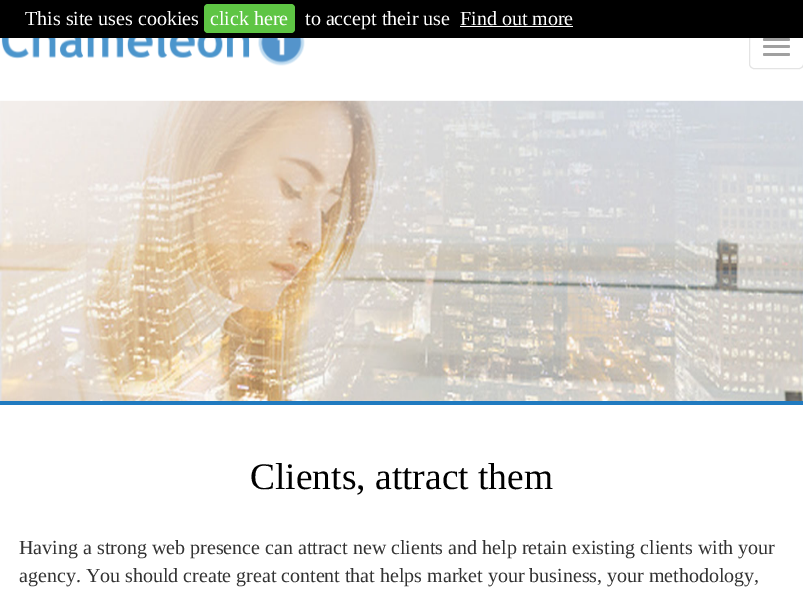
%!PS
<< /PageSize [803 606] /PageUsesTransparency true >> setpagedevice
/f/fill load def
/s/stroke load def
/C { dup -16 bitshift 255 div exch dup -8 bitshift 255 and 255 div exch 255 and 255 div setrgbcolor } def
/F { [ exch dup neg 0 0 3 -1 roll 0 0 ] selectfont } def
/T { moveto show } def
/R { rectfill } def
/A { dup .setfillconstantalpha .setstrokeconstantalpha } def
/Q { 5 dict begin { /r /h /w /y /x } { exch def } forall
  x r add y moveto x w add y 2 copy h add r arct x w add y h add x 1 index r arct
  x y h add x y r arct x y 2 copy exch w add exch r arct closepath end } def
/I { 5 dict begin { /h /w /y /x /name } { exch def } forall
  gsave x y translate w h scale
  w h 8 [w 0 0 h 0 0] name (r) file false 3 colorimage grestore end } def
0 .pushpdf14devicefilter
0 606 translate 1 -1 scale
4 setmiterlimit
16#FFFFFF C
0 0 803 606 R
16#E4E4E4 C
749.5 24.5 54 44 4.5 Q s
16#000000 C
0 0 803 38 R
/LiberationSerif-Regular 20 F
16#FFFFFF C
(This site uses cookies) 25 25 T
16#5EC544 C
204 4 91 29 4 Q f
16#FFFFFF C
(click here) 210 25 T
(to accept their use) 305 25 T
(Find out more) 460 25 T
460 26 113 1 R
(2.rgb) 0 100 803 301 I
0.8 A
0 100 803 1 R
1 A
(1.rgb) 1 38 304 28 I
16#A0A0A0 C
763 38 27 3 1.5 Q f
763 45 27 3 1.5 Q f
763 53 27 3 1.5 Q f
16#207ABF C
0 401 803 4 R
/LiberationSerif-Regular 37.5 F
16#000000 C
(Clients, attract them) 250 489 T
/LiberationSerif-Regular 20 F
16#333333 C
(Having a strong web presence can attract new clients and help retain existing clients with your) 19 554 T
(agency. You should create great content that helps market your business, your methodology,) 19 582 T
.poppdf14devicefilter showpage
